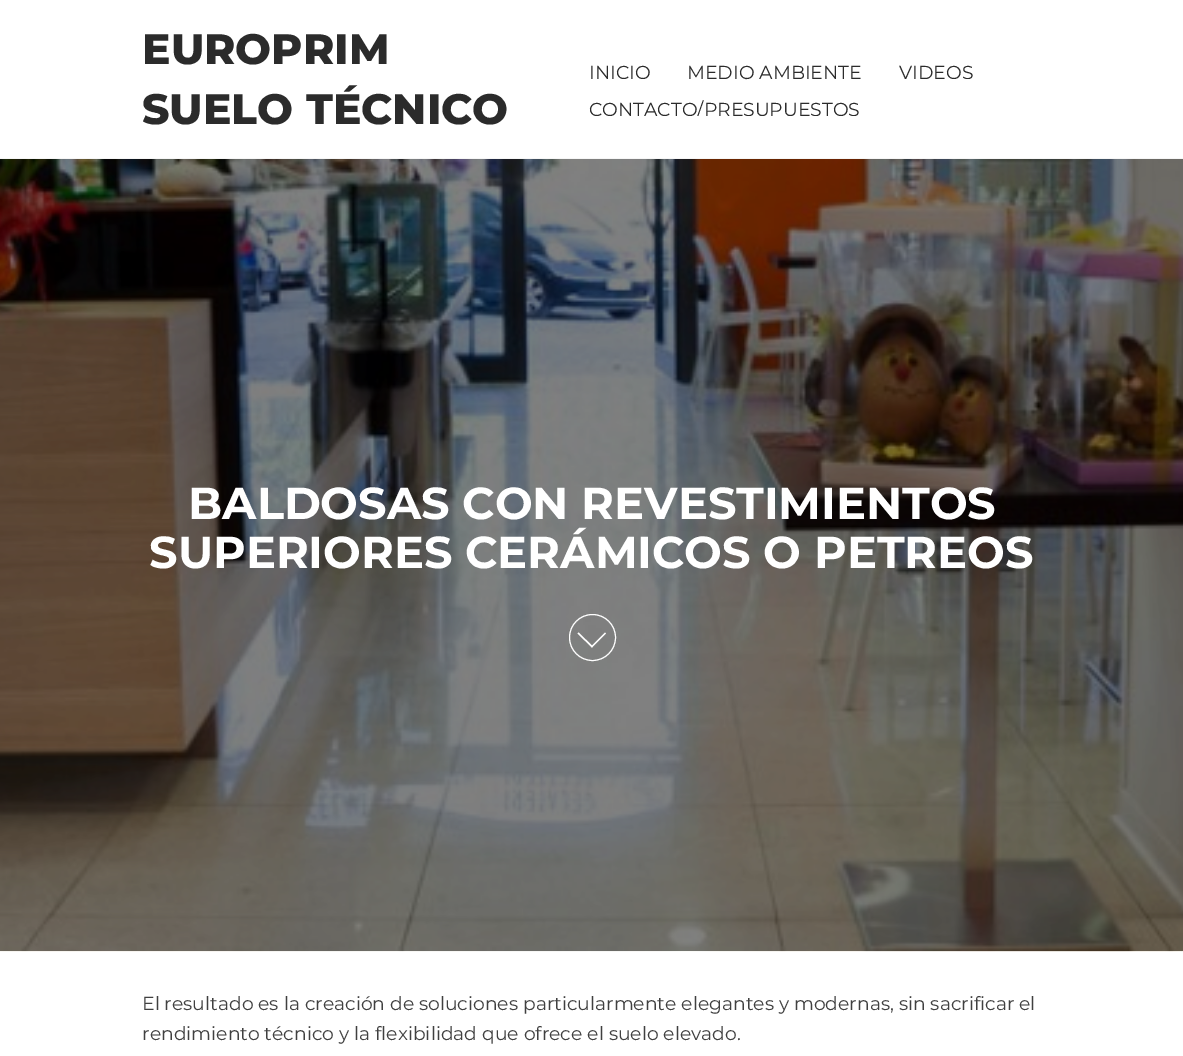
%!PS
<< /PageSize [1183 1056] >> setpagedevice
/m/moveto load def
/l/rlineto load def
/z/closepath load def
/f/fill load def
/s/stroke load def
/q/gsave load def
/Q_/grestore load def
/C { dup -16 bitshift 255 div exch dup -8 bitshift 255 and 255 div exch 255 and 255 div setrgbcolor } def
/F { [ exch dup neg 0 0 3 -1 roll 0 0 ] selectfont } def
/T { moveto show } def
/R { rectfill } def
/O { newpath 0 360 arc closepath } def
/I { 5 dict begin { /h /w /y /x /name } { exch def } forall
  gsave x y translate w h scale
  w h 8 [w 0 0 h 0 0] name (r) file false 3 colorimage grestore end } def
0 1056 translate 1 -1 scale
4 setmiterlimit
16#FFFFFF C
0 0 1183 1056 R
16#F6F6F6 C
0 158 1183 1 R
/Montserrat-ExtraBold 42.5 F
16#2B2B2B C
(EUROPRIM) 142 64 T
(SUELO TÉCNICO) 142 124 T
q
570 41 99 38 rectclip
/Montserrat-Regular 18.75 F
(INICIO) 589 79 T
Q_
/Montserrat-Regular 18.75 F
(MEDIO AMBIENTE) 687 79 T
q
880 41 113 38 rectclip
(VIDEOS) 899 79 T
Q_
q
570 79 309 37 rectclip
(CONTACTO/PRESUPUESTOS) 589 116 T
Q_
(2.rgb) 0 951 1183 1 I
(1.rgb) 0 159 1183 793 I
/Montserrat-Bold 44.75 F
16#FFFFFF C
(BALDOSAS CON REVESTIMIENTOS) 188 519 T
(SUPERIORES CERÁMICOS O PETREOS) 149 568 T
592.5 637.5 23 O s
591 646.5 m 14 -14 l 1 1 l -14 14 l z f
577.5 633.5 m 1 -1 l 14.5 14 l -1 1 l z f
/Montserrat-Regular 18.75 F
16#404040 C
(El resultado es la creación de soluciones particularmente elegantes y modernas, sin sacrificar el) 142 1010 T
(rendimiento técnico y la flexibilidad que ofrece el suelo elevado.) 142 1040 T
showpage
